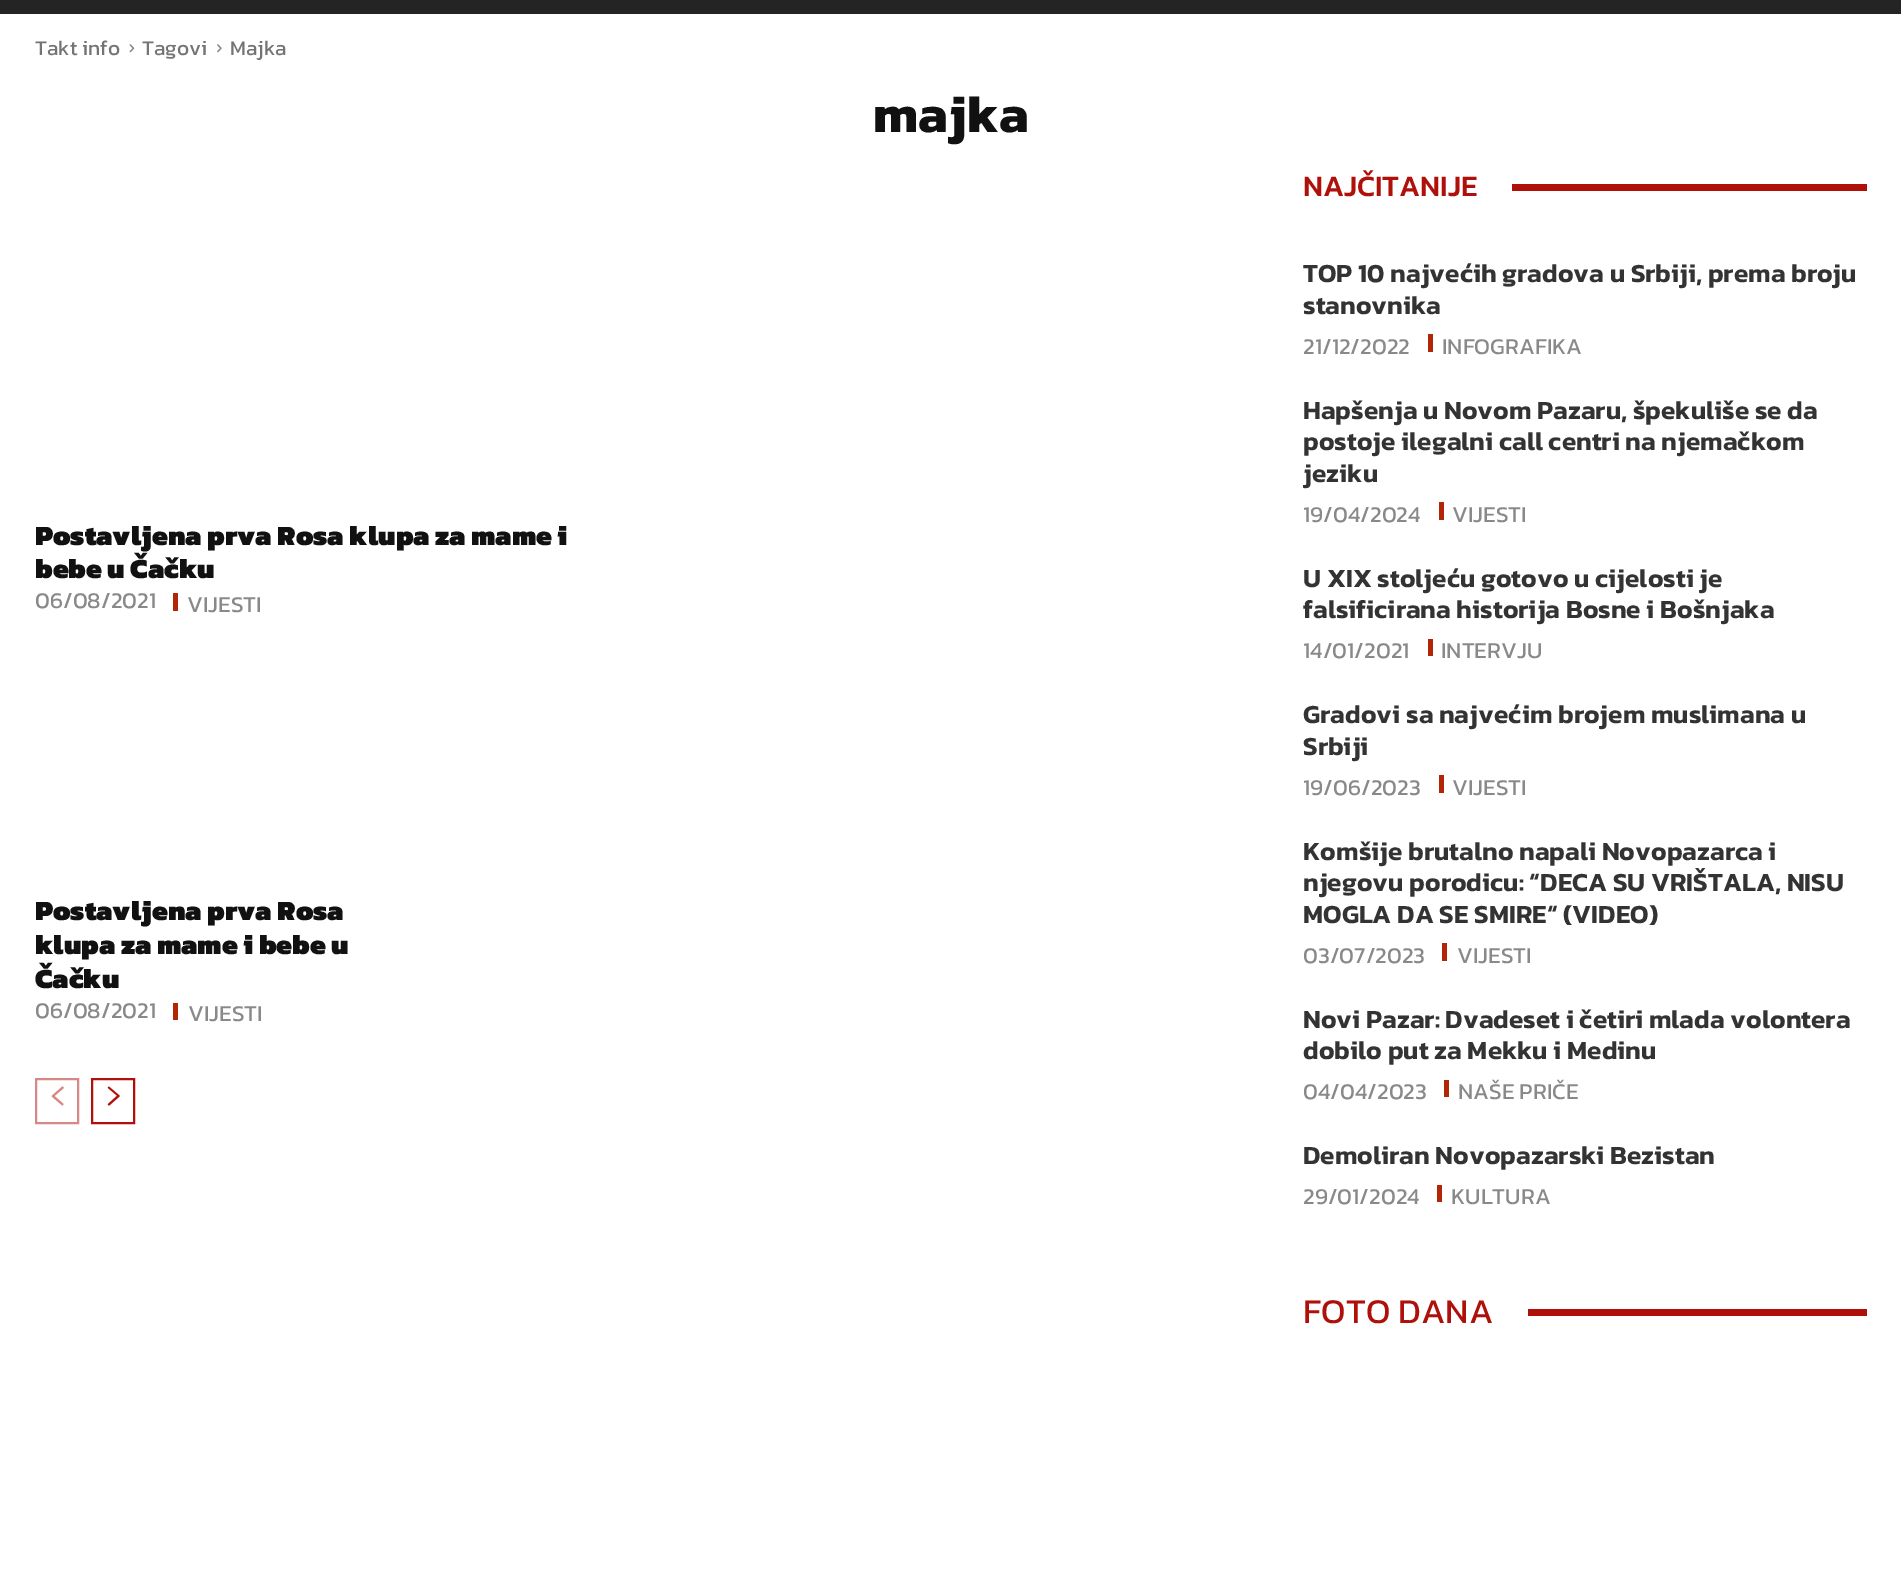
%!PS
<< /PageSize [1901 1572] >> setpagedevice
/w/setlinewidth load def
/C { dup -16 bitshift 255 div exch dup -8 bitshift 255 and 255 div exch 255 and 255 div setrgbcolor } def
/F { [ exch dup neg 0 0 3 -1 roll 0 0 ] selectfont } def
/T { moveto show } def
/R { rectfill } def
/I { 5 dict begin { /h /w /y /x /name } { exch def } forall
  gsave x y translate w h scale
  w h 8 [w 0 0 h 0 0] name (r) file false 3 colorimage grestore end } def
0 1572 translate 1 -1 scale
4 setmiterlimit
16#FFFFFF C
0 0 1901 1572 R
16#242424 C
0 0 1901 14 R
/Kanit-Regular 21 F
16#747474 C
(Takt info) 35 55 T
(1.rgb) 129 44 6 9 I
(Tagovi) 142 55 T
(2.rgb) 217 44 5 9 I
(Majka) 230 55 T
/Kanit-Bold 52.5 F
16#111111 C
(majka) 873 132 T
/Kanit-Black 28 F
(Postavljena prva Rosa klupa za mame i) 35 545 T
(bebe u Čačku) 35 578 T
/Kanit-Regular 22.75 F
16#898989 C
(06/08/2021) 35 608 T
16#B22505 C
173 593 5 18 R
16#898989 C
(VIJESTI) 187 612 T
/Kanit-Black 28 F
16#111111 C
(Postavljena prva Rosa) 35 920 T
(klupa za mame i bebe u) 35 954 T
(Čačku) 35 988 T
/Kanit-Regular 22.75 F
16#898989 C
(06/08/2021) 35 1018 T
16#B22505 C
173 1003 5 17 R
16#898989 C
(VIJESTI) 188 1021 T
16#D78885 C
2 w
36 1079 42 44 rectstroke
(3.rgb) 51 1086 13 20 I
16#AF110A C
92 1079 42 44 rectstroke
(4.rgb) 107 1086 13 20 I
/Kanit-Medium 29.75 F
(NAJČITANIJE) 1303 196 T
1512 184 355 7 R
/Kanit-SemiBold 26.25 F
16#333333 C
(TOP 10 najvećih gradova u Srbiji, prema broju) 1303 282 T
(stanovnika) 1303 314 T
/Kanit-Regular 22.75 F
16#898989 C
(21/12/2022) 1303 354 T
16#B22505 C
1428 334 5 18 R
16#898989 C
(INFOGRAFIKA) 1442 354 T
/Kanit-SemiBold 26.25 F
16#333333 C
(Hapšenja u Novom Pazaru, špekuliše se da) 1303 419 T
(postoje ilegalni call centri na njemačkom) 1303 450 T
(jeziku) 1303 482 T
/Kanit-Regular 22.75 F
16#898989 C
(19/04/2024) 1303 522 T
16#B22505 C
1439 502 5 18 R
16#898989 C
(VIJESTI) 1452 522 T
/Kanit-SemiBold 26.25 F
16#333333 C
(U XIX stoljeću gotovo u cijelosti je) 1303 587 T
(falsificirana historija Bosne i Bošnjaka) 1303 618 T
/Kanit-Regular 22.75 F
16#898989 C
(14/01/2021) 1303 658 T
16#B22505 C
1428 639 5 17 R
16#898989 C
(INTERVJU) 1441 658 T
/Kanit-SemiBold 26.25 F
16#333333 C
(Gradovi sa najvećim brojem muslimana u) 1303 723 T
(Srbiji) 1303 755 T
/Kanit-Regular 22.75 F
16#898989 C
(19/06/2023) 1303 795 T
16#B22505 C
1439 775 5 18 R
16#898989 C
(VIJESTI) 1452 795 T
/Kanit-SemiBold 26.25 F
16#333333 C
(Komšije brutalno napali Novopazarca i) 1303 860 T
(njegovu porodicu: “DECA SU VRIŠTALA, NISU) 1303 891 T
(MOGLA DA SE SMIRE“ \(VIDEO\)) 1303 923 T
/Kanit-Regular 22.75 F
16#898989 C
(03/07/2023) 1303 963 T
16#B22505 C
1442 943 5 18 R
16#898989 C
(VIJESTI) 1457 963 T
/Kanit-SemiBold 26.25 F
16#333333 C
(Novi Pazar: Dvadeset i četiri mlada volontera) 1303 1028 T
(dobilo put za Mekku i Medinu) 1303 1059 T
/Kanit-Regular 22.75 F
16#898989 C
(04/04/2023) 1303 1099 T
16#B22505 C
1444 1080 5 17 R
16#898989 C
(NAŠE PRIČE) 1458 1099 T
/Kanit-SemiBold 26.25 F
16#333333 C
(Demoliran Novopazarski Bezistan) 1303 1164 T
/Kanit-Regular 22.75 F
16#898989 C
(29/01/2024) 1303 1204 T
16#B22505 C
1437 1185 5 17 R
16#898989 C
(KULTURA) 1451 1204 T
/Kanit-Regular 35 F
16#AF110A C
(FOTO DANA) 1303 1323 T
1528 1309 339 7 R
showpage
